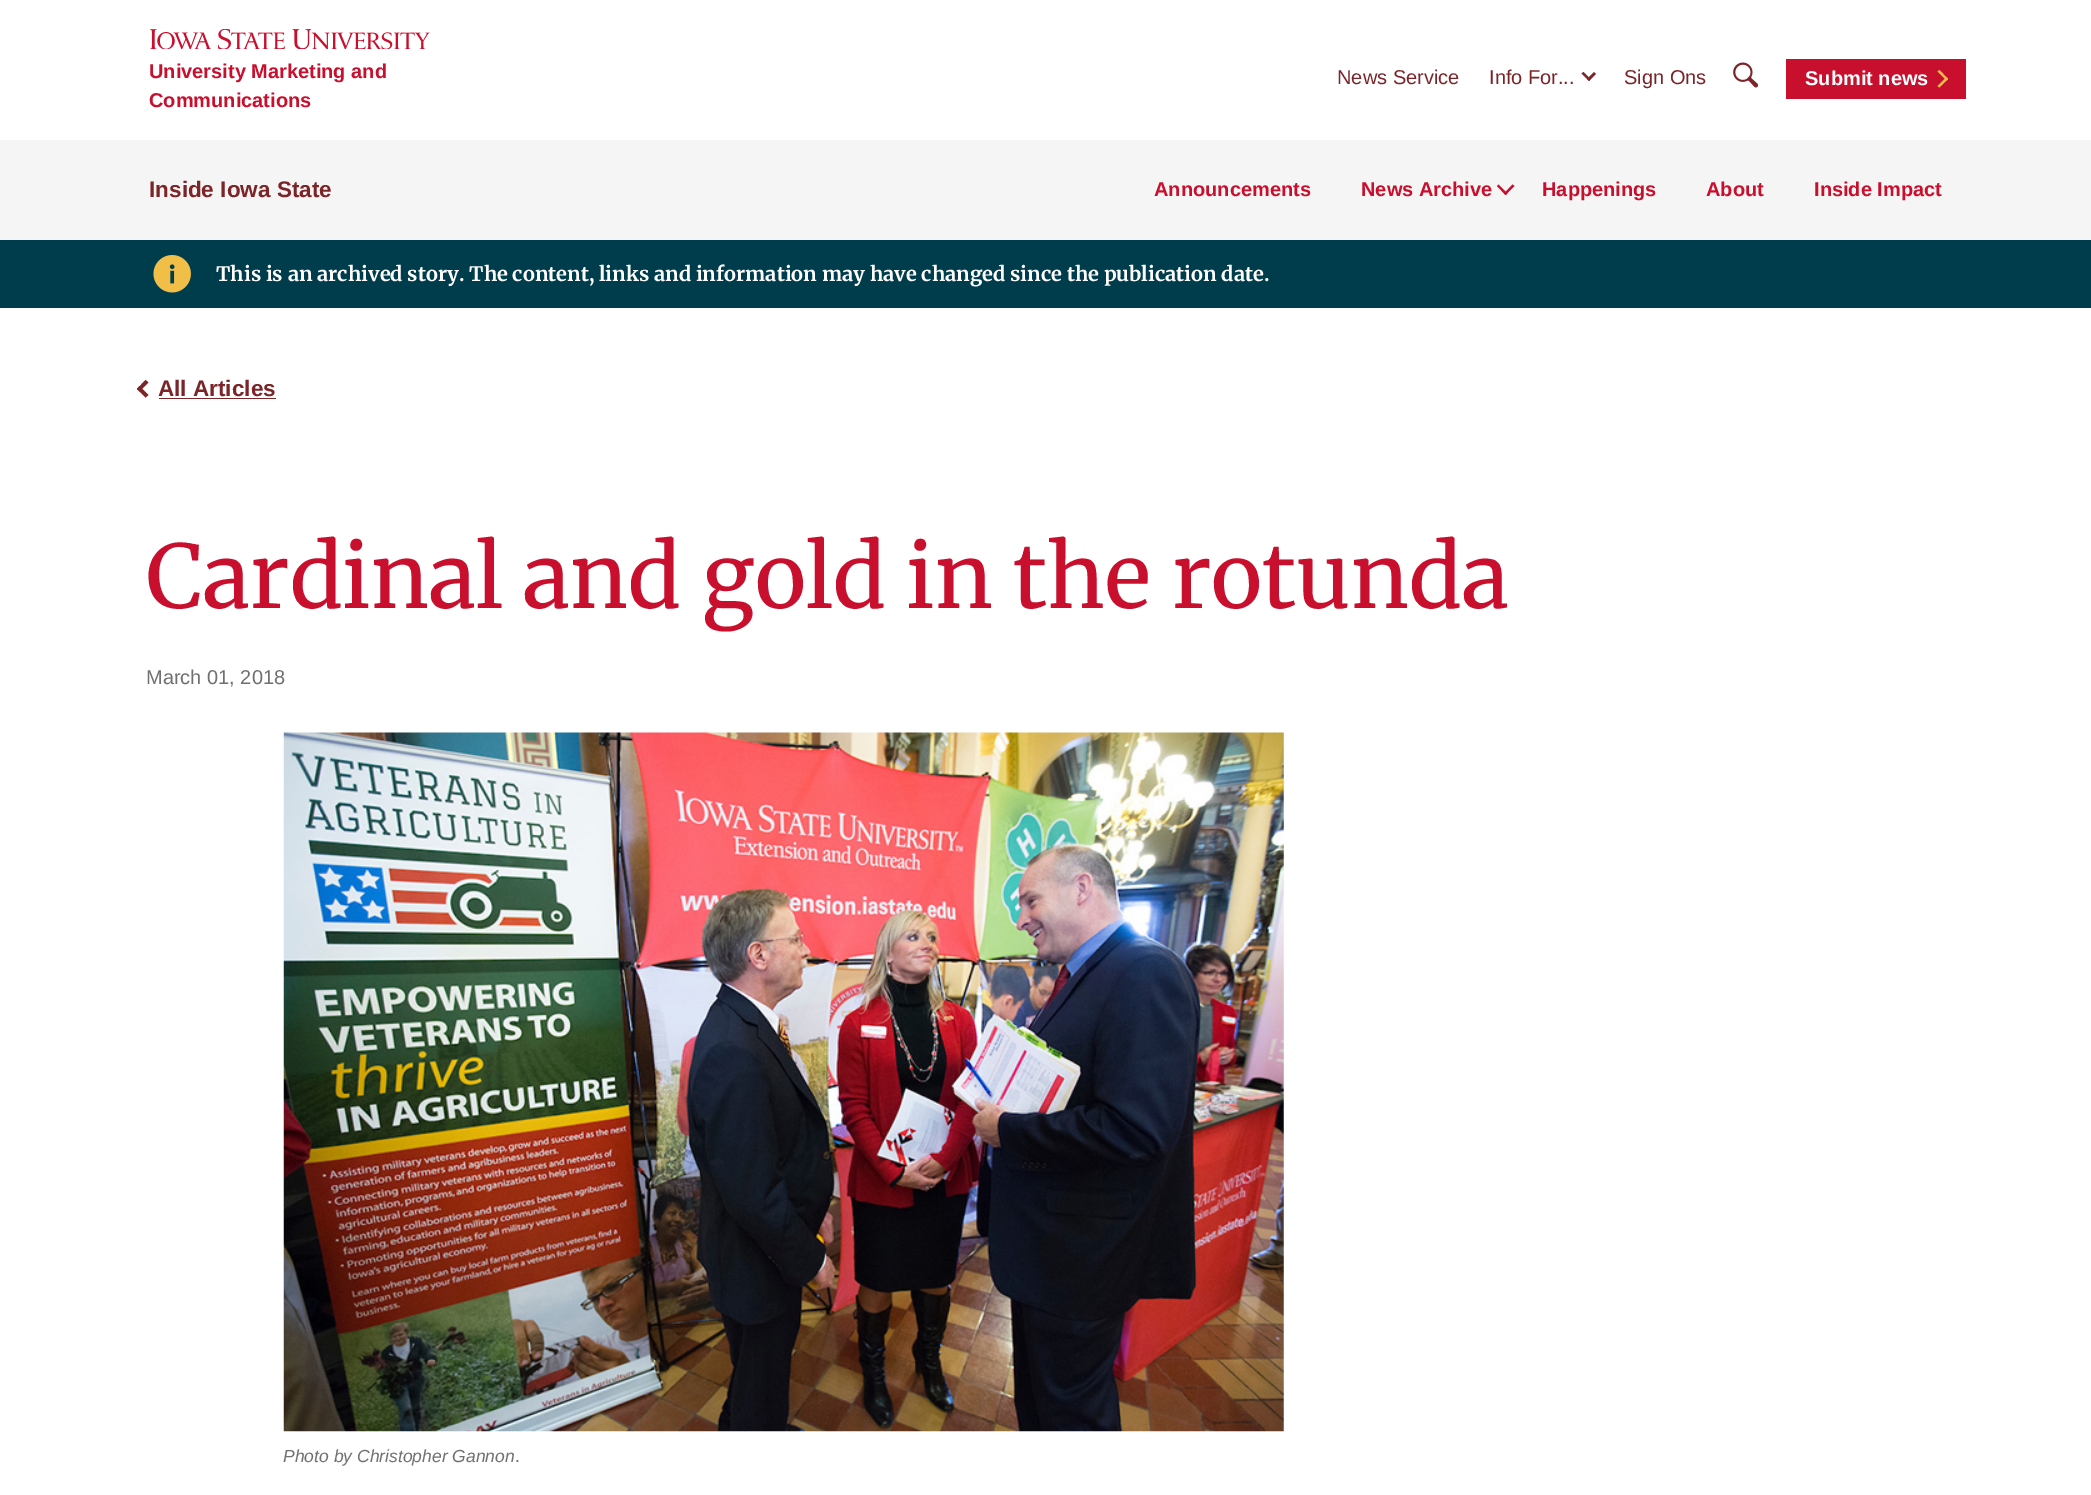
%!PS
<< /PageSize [2091 1495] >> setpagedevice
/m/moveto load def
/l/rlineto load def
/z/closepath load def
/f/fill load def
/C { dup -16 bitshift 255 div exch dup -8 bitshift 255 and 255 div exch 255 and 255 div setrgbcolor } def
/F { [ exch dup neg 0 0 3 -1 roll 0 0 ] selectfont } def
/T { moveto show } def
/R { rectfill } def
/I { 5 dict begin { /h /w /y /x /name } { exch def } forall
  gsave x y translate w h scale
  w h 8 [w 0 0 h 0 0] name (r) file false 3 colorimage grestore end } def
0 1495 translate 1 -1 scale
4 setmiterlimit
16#FFFFFF C
0 0 2091 1495 R
(1.rgb) 150 29 280 20 I
/LiberationSans-Bold 20 F
16#C8102E C
(University Marketing and) 149 78 T
(Communications) 149 107 T
/LiberationSans-Regular 20 F
16#7C2529 C
(News Service) 1337 84 T
(Info For...) 1489 84 T
1594 72 m 2 2 l -7 7 l -2 -2 l z f
1583.5 72 m 7 7 l -1.5 2 l -7.5 -7.5 l z f
(Sign Ons) 1624 84 T
(2.rgb) 1733 62 26 26 I
16#C8102E C
1786 59 180 40 R
/LiberationSans-Bold 20 F
16#FFFFFF C
(Submit news) 1805 85 T
16#F1BE48 C
1937.5 71.5 m 2 -1.5 l 8.5 9 l -1.5 1.5 l z f
1937.5 86 m 9 -9 l 1.5 2 l -8.5 8.5 l z f
16#F5F5F5 C
0 140 2091 100 R
/LiberationSans-Bold 22.5 F
16#7C2529 C
(Inside Iowa State) 149 197 T
/LiberationSans-Bold 20 F
16#C8102E C
(Announcements) 1154 196 T
(News Archive) 1361 196 T
1512.5 184.5 m 2 1.5 l -9 9 l -1.5 -1.5 l z f
1498.5 184.5 m 9 9 l -2 1.5 l -8.5 -9 l z f
(Happenings) 1542 196 T
(About) 1706 196 T
(Inside Impact) 1814 196 T
16#003D4C C
0 240 2091 68 R
(3.rgb) 153 255 38 38 I
/Merriweather-Bold 20 F
16#FFFFFF C
(This is an archived story. The content, links and information may have changed since the publication date.) 216 281 T
16#7C2529 C
139.5 386 m 9 9 l -3 2.5 l -8.5 -8.5 l z f
145.5 380 m 3 2.5 l -9 9 l -2.5 -2.5 l z f
/LiberationSans-Bold 22.5 F
(All Articles) 158 396 T
159 398 117 1 R
/Merriweather-Regular 87.5 F
16#C8102E C
(Cardinal and gold in the rotunda) 146 608 T
/LiberationSans-Regular 20 F
16#707070 C
(March 01, 2018) 146 684 T
(4.rgb) 283 732 1001 700 I
/LiberationSans-Italic 17.5 F
(Photo by Christopher Gannon) 283 1462 T
/LiberationSans-Regular 17.5 F
(.) 515 1462 T
showpage
